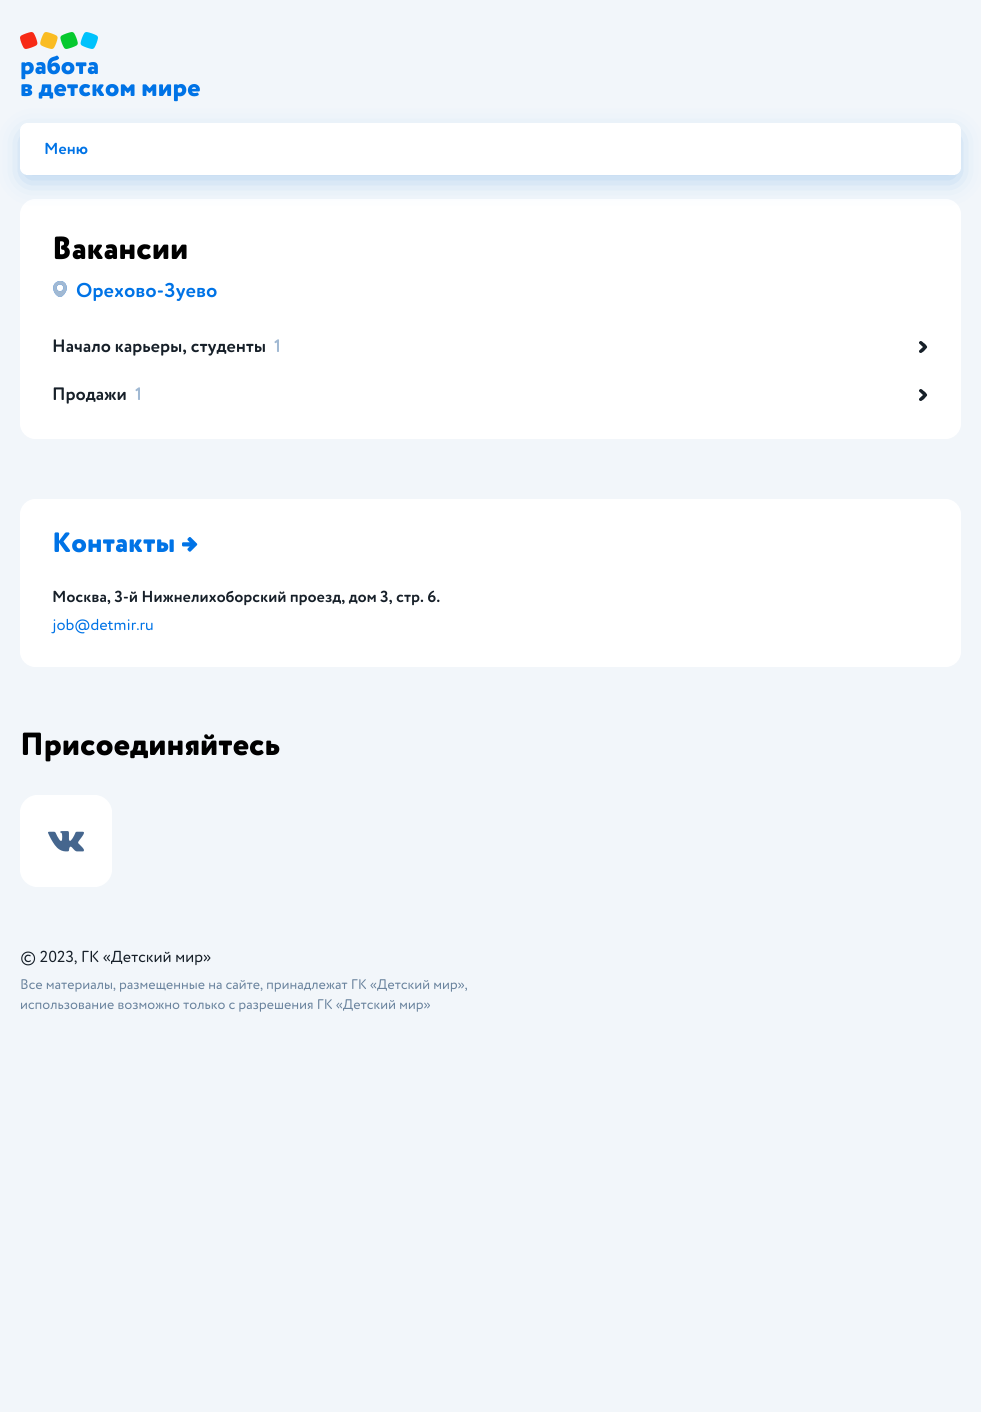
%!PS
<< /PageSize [981 1412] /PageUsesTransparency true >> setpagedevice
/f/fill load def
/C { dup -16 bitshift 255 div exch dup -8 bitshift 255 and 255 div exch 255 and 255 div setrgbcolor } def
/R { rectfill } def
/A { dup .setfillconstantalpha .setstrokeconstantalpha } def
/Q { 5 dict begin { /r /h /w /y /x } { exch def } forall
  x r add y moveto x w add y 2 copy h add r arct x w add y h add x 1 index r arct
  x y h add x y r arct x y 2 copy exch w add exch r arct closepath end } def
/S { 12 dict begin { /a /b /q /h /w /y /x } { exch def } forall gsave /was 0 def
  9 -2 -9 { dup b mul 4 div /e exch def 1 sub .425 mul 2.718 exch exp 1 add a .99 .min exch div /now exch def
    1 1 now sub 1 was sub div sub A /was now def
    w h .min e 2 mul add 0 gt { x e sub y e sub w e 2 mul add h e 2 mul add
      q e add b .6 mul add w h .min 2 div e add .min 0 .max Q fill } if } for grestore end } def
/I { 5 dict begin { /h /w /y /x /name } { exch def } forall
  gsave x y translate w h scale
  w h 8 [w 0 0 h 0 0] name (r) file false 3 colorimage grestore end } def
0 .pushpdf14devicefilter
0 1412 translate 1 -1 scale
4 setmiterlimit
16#F2F6FA C
0 0 981 1412 R
(1.rgb) 20 32 78 17 I
(2.rgb) 21 55 77 25 I
(3.rgb) 21 84 179 18 I
16#FFFFFF C
20 199 941 240 16 Q f
16#2375D3 C
20 131 941 52 8 10 .24 S
16#FFFFFF C
20 123 941 52 8 Q f
(4.rgb) 45 142 43 13 I
(5.rgb) 54 236 133 24 I
(6.rgb) 53 281 14 16 I
(7.rgb) 76 282 141 19 I
(8.rgb) 53 339 212 17 I
(9.rgb) 274 339 5 13 I
(10.rgb) 919 341 9 12 I
(11.rgb) 53 387 73 17 I
(9.rgb) 135 387 5 13 I
(10.rgb) 919 389 9 12 I
20 499 941 168 16 Q f
(12.rgb) 54 532 144 21 I
(13.rgb) 53 590 387 16 I
(14.rgb) 51 618 102 16 I
(15.rgb) 22 732 258 30 I
20 795 92 92 18 Q f
(16.rgb) 48 831 36 21 I
(17.rgb) 21 950 190 16 I
(18.rgb) 21 979 446 13 I
(19.rgb) 21 999 409 13 I
.poppdf14devicefilter showpage
